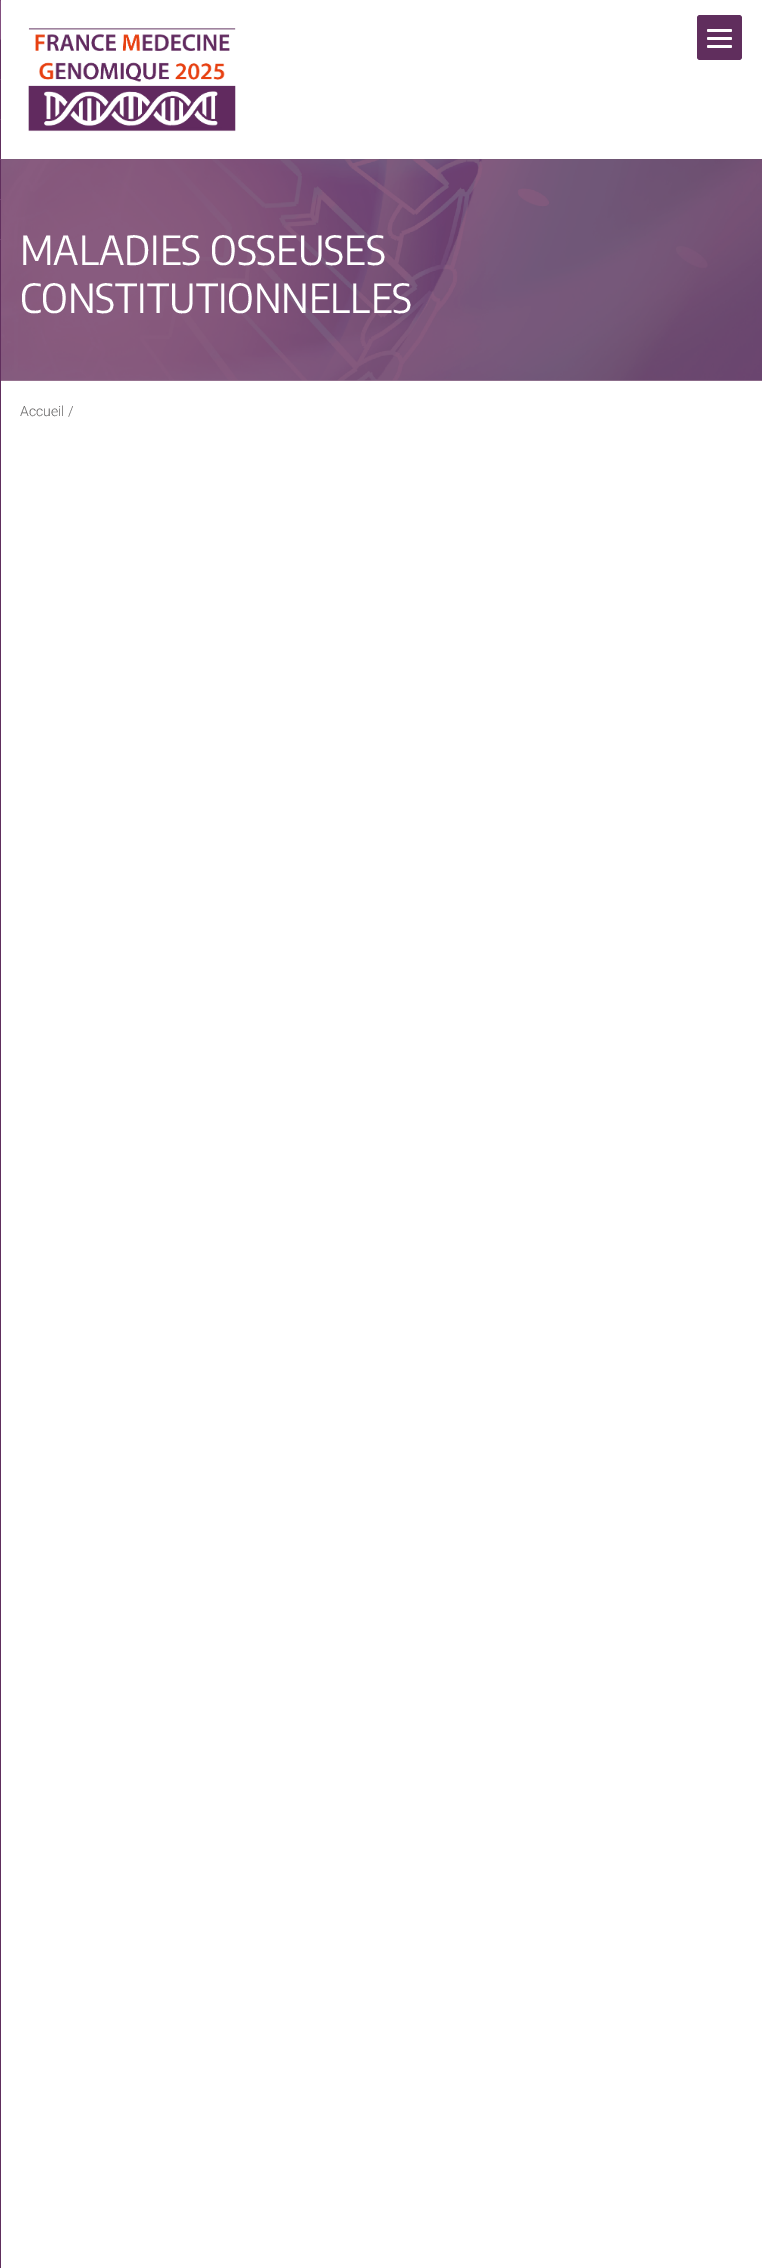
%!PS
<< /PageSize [762 2268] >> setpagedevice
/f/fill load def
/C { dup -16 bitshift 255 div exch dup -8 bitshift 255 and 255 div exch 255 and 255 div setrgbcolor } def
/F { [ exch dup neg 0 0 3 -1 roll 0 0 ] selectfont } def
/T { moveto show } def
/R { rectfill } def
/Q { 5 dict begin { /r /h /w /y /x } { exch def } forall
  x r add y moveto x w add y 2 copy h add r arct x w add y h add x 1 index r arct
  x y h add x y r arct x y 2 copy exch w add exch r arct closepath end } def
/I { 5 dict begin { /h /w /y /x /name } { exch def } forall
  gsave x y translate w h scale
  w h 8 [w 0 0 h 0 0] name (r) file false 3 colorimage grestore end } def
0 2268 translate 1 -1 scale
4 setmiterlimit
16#FFFFFF C
0 0 762 2268 R
16#602E5D C
0 40 1 2228 R
16#824E7F C
0 0 1 40 R
16#754172 C
0 0 1 1 R
0 39 1 1 R
0 79 1 1 R
0 119 1 1 R
0 159 1 1 R
0 199 1 1 R
0 239 1 1 R
16#602E5D C
697 15 45 45 3 Q f
16#FFFFFF C
707 37 25 3 1.5 Q f
707 29 25 3 1.5 Q f
707 45 25 3 1.5 Q f
(1.rgb) 28 28 208 104 I
(2.rgb) 1 159 761 222 I
/EncodeSansSemiCondensed-Regular 40 F
(MALADIES OSSEUSES) 20 265 T
(CONSTITUTIONNELLES) 20 313 T
/Roboto-Light 14 F
16#646363 C
(Accueil /) 20 416 T
showpage
